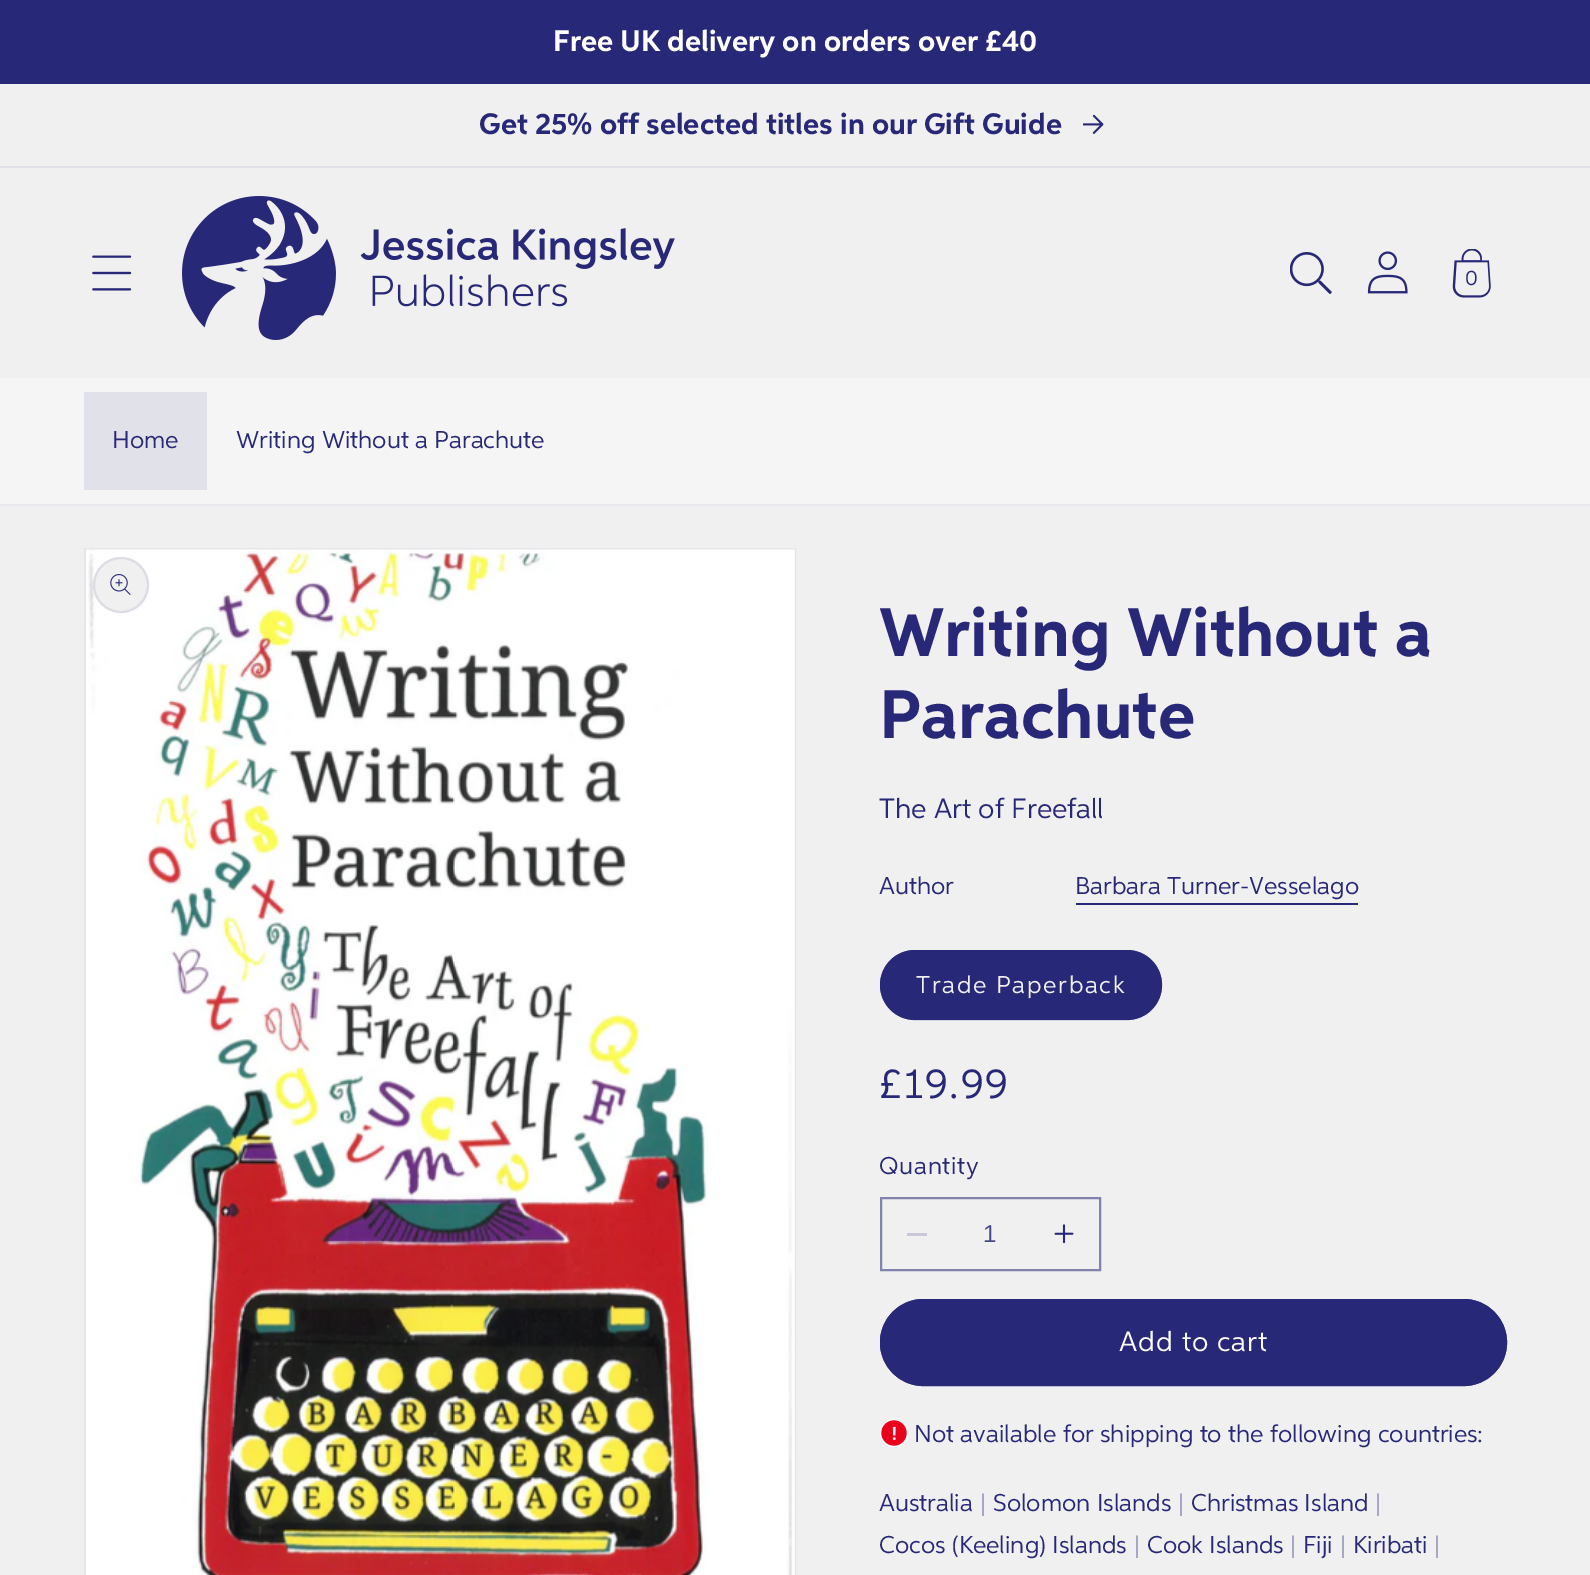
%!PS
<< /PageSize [1590 1575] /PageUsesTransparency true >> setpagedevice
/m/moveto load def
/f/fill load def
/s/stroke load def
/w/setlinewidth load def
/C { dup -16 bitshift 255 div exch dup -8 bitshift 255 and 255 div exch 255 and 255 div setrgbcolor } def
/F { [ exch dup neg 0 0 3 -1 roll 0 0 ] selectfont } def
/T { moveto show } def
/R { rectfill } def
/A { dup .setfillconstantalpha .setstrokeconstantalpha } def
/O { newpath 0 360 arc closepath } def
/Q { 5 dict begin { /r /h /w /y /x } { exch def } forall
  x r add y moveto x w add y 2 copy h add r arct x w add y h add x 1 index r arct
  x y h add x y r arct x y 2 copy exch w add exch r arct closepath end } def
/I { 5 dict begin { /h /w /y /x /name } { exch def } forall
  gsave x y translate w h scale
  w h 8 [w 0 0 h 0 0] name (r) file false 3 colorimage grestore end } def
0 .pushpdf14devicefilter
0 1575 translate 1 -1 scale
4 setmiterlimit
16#F0F0F0 C
0 0 1590 1575 R
16#282878 C
0 0 1590 84 R
/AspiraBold-Bold 29.75 F
16#FFFFFF C
(Free UK delivery on orders over £40) 553 51 T
16#E0E0E6 C
0 166 1590 2 R
16#282878 C
(Get 25% off selected titles in our Gift Guide) 479 134 T
(1.rgb) 1083 114 21 20 I
(2.rgb) 92 255 40 36 I
(3.rgb) 182 196 493 144 I
(4.rgb) 1290 252 42 42 I
(5.rgb) 1367 251 41 43 I
(6.rgb) 1452 249 39 49 I
/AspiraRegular-Regular 21 F
(0) 1465 285 T
16#F5F5F5 C
0 378 1590 126 R
16#E9E9EE C
0 504 1590 2 R
16#E1E1E9 C
84 392 123 98 R
/AspiraRegular-Regular 24.4 F
16#282878 C
(Home) 112 448 T
(Writing Without a Parachute) 236 448 T
16#E6E6EA C
2 w
85 549 710 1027 rectstroke
(7.rgb) 86 549 709 1026 I
16#F0F0F0 C
121 585 28 O f
0.1 A
16#282878 C
121 585 27 O s
1 A
(8.rgb) 110 574 21 21 I
/AspiraBold-Bold 68.75 F
(Writing Without a) 879 656 T
(Parachute) 879 738 T
/AspiraRegular-Regular 28 F
(The Art of Freefall) 879 818 T
/AspiraRegular-Regular 24.4 F
(Author) 879 894 T
(Barbara Turner-Vesselago) 1075 894 T
1076 903 282 2 R
880 950 282 70 35 Q f
0.55 A
881 951 280 68 34 Q s
1 A
16#F0F0F0 C
916 993 m 1.7 0 (Trade Paperback) ashow
/AspiraRegular-Regular 42 F
16#282878 C
879 1098 m 1.7 0 (£19.99) ashow
/AspiraRegular-Regular 24.4 F
879 1174 m .75 0 (Quantity) ashow
16#C8C8D8 C
907 1233 20 3 R
(9.rgb) 1054 1224 20 20 I
16#8282AE C
881 1198 219 72 rectstroke
/LiberationSans-Regular 24.4 F
16#46468A C
(1) 983 1242 T
16#282878 C
880 1299 627 87 43.5 Q f
881 1300 625 85 42.5 Q s
/AspiraRegular-Regular 28 F
16#FFFFFF C
1119 1351 m .9 0 (Add to cart) ashow
(10.rgb) 880 1419 28 28 I
/AspiraRegular-Regular 24.4 F
16#282878 C
(Not available for shipping to the following countries:) 914 1442 T
(Australia) 879 1511 T
16#8C8CB4 C
(|) 980 1511 T
16#282878 C
(Solomon Islands) 993 1511 T
16#8C8CB4 C
(|) 1178 1511 T
16#282878 C
(Christmas Island) 1191 1511 T
16#8C8CB4 C
(|) 1375 1511 T
16#282878 C
(Cocos \(Keeling\) Islands) 879 1553 T
16#8C8CB4 C
(|) 1134 1553 T
16#282878 C
(Cook Islands) 1147 1553 T
16#8C8CB4 C
(|) 1290 1553 T
16#282878 C
(Fiji) 1303 1553 T
16#8C8CB4 C
(|) 1340 1553 T
16#282878 C
(Kiribati) 1353 1553 T
16#8C8CB4 C
(|) 1434 1553 T
.poppdf14devicefilter showpage
